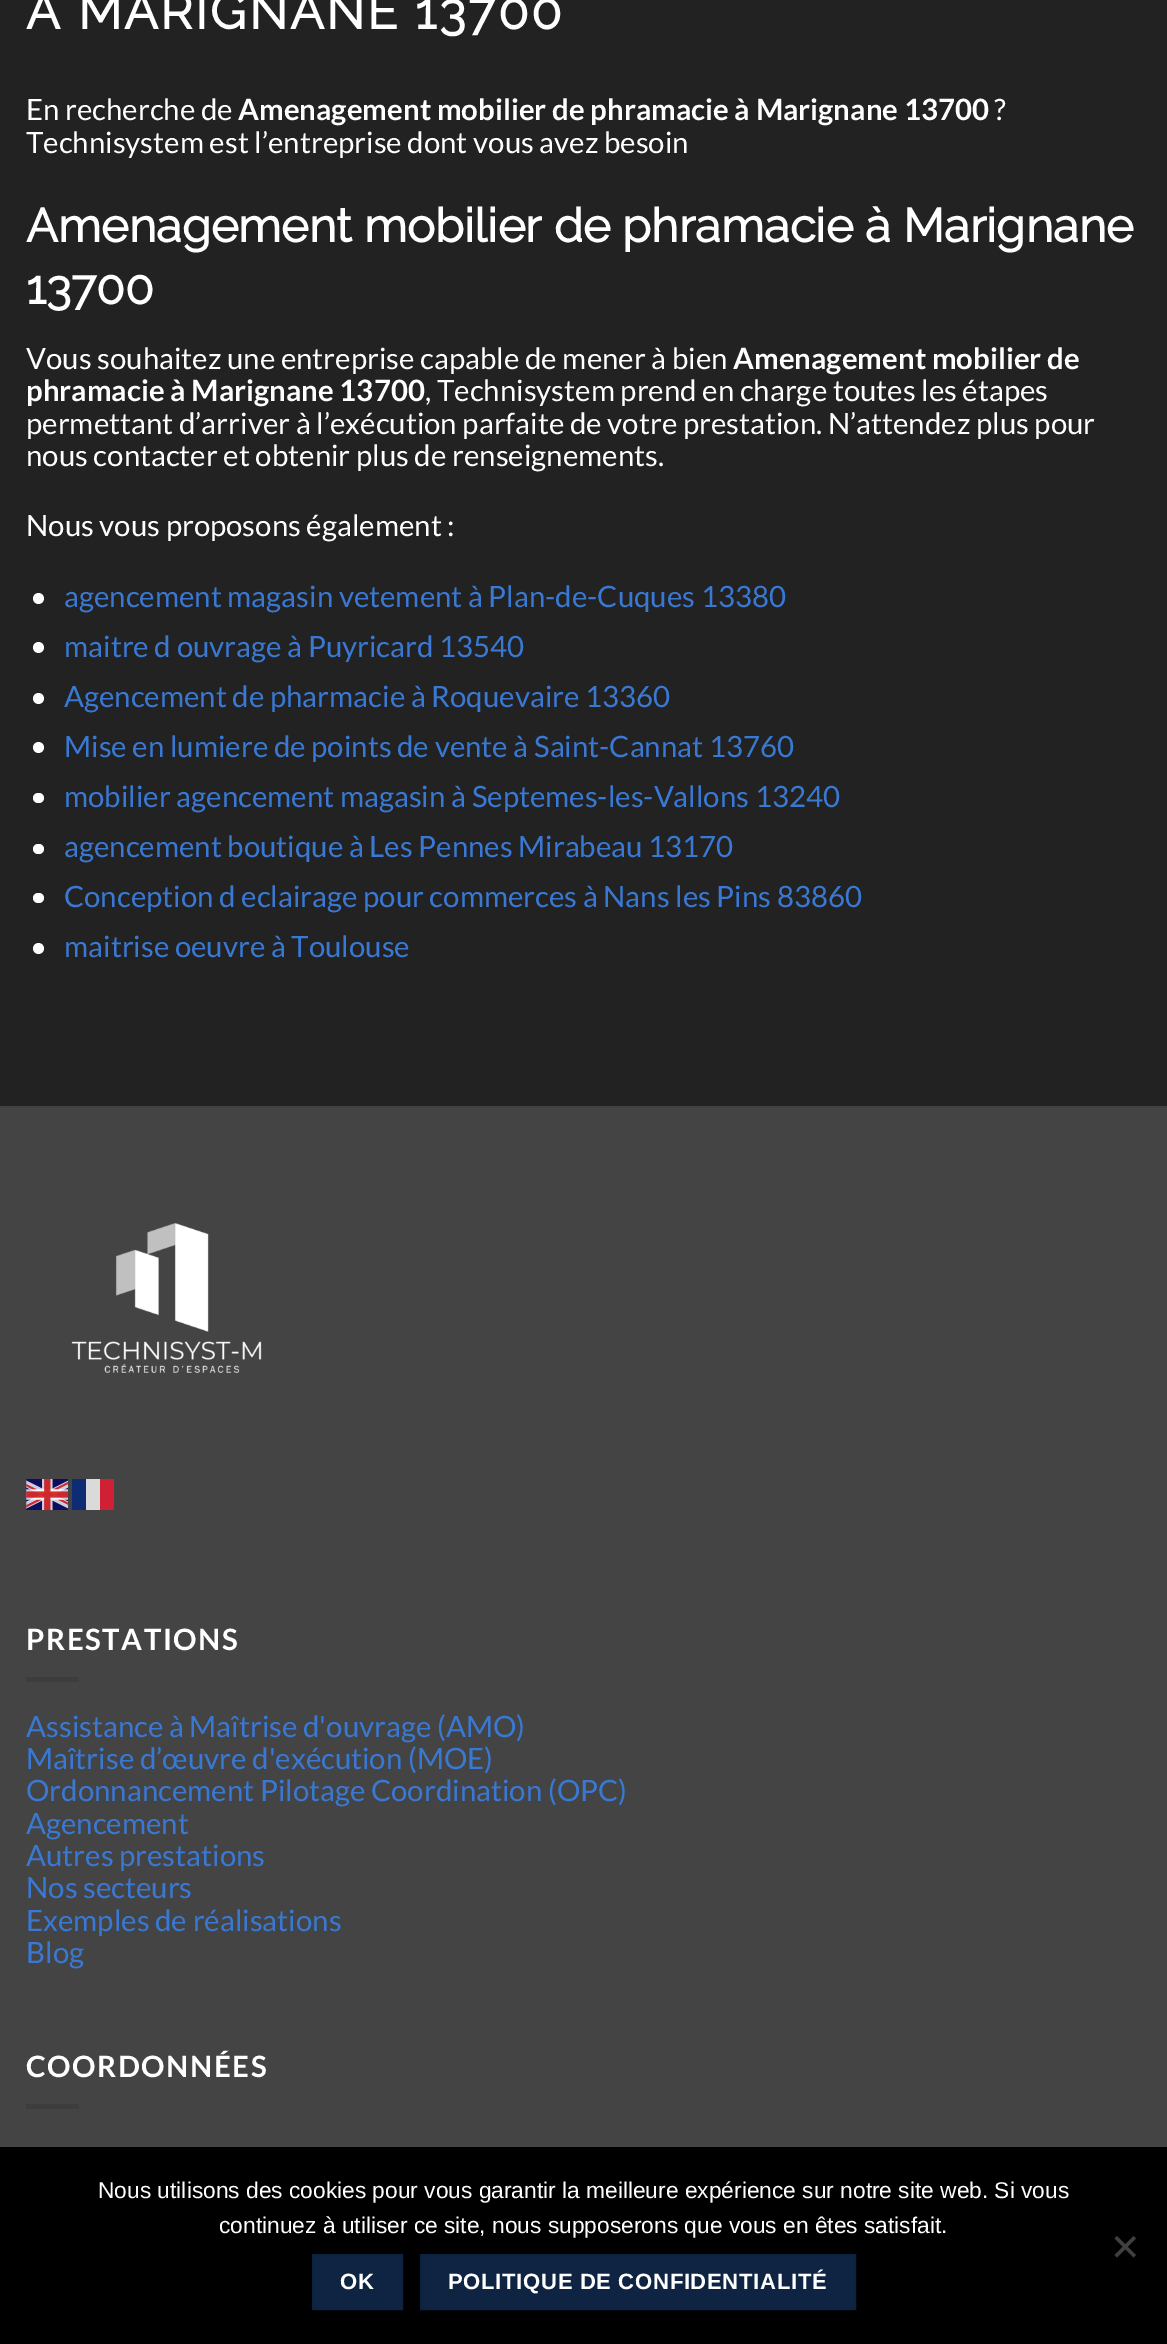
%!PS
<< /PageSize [1167 2344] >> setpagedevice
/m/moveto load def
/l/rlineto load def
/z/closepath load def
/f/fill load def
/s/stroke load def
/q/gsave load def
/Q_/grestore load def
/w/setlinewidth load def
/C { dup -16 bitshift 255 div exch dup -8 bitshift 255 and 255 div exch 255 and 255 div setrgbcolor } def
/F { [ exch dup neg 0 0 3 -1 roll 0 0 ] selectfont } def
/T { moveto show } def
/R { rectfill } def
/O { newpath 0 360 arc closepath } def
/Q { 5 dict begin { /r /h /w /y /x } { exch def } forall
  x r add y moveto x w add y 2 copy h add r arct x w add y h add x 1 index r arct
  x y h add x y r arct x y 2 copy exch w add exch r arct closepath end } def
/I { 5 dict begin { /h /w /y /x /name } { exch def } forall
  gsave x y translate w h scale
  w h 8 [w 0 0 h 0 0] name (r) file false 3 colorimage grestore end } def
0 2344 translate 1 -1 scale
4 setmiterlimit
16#222222 C
0 0 1167 2344 R
/Raleway-Bold 50 F
16#FFFFFF C
26 29 m 2.5 0 (À MARIGNANE 13700) ashow
/Lato-Regular 29.4 F
(En recherche de) 26 120 T
/Lato-Bold 29.4 F
(Amenagement mobilier de phramacie à Marignane 13700) 238 120 T
/Lato-Regular 29.4 F
(?) 994 120 T
(Technisystem est l’entreprise dont vous avez besoin) 26 153 T
/Raleway-Bold 47 F
(Amenagement mobilier de phramacie à Marignane) 26 242 T
(13700) 26 304 T
/Lato-Regular 29.4 F
(Vous souhaitez une entreprise capable de mener à bien) 26 369 T
/Lato-Bold 29.4 F
(Amenagement mobilier de) 733 369 T
(phramacie à Marignane 13700) 26 401 T
/Lato-Regular 29.4 F
(, Technisystem prend en charge toutes les étapes) 425 401 T
(permettant d’arriver à l’exécution parfaite de votre prestation. N’attendez plus pour) 26 434 T
(nous contacter et obtenir plus de renseignements.) 26 466 T
(Nous vous proposons également :) 26 536 T
38.5 598.5 5.5 O f
16#3979D4 C
(agencement magasin vetement à Plan-de-Cuques 13380) 64 607 T
16#FFFFFF C
38.5 647.5 5.5 O f
16#3979D4 C
(maitre d ouvrage à Puyricard 13540) 64 657 T
16#FFFFFF C
38.5 698.5 5.5 O f
16#3979D4 C
(Agencement de pharmacie à Roquevaire 13360) 64 707 T
16#FFFFFF C
38.5 747.5 5.5 O f
16#3979D4 C
(Mise en lumiere de points de vente à Saint-Cannat 13760) 64 757 T
16#FFFFFF C
33 793 11 10 5 Q f
16#3979D4 C
(mobilier agencement magasin à Septemes-les-Vallons 13240) 64 807 T
16#FFFFFF C
33 844 11 10 5 Q f
16#3979D4 C
(agencement boutique à Les Pennes Mirabeau 13170) 64 857 T
16#FFFFFF C
33 893 11 10 5 Q f
16#3979D4 C
(Conception d eclairage pour commerces à Nans les Pins 83860) 64 907 T
16#FFFFFF C
38.5 948.5 5.5 O f
16#3979D4 C
(maitrise oeuvre à Toulouse) 64 957 T
16#444444 C
0 1108 1167 1039 R
16#414141 C
0 1106 1167 2 R
(1.rgb) 71 1223 191 150 I
(2.rgb) 26 1479 42 31 I
16#0E2C73 C
72 1479 14 31 R
16#DADADA C
86 1479 14 31 R
16#D02134 C
100 1479 14 31 R
/Lato-Bold 29.4 F
16#FFFFFF C
26 1650 m 1.5 0 (PRESTATIONS) ashow
16#3D3D3D C
26 1677 53 5 R
/Lato-Regular 29.4 F
16#3979D4 C
(Assistance à Maîtrise d'ouvrage \(AMO\)) 26 1737 T
(Maîtrise d’œuvre d'exécution \(MOE\)) 26 1769 T
(Ordonnancement Pilotage Coordination \(OPC\)) 26 1801 T
(Agencement) 26 1834 T
(Autres prestations) 26 1866 T
(Nos secteurs) 26 1898 T
(Exemples de réalisations) 26 1931 T
(Blog) 26 1963 T
/Lato-Bold 29.4 F
16#FFFFFF C
26 2077 m 1.5 0 (COORDONNÉES) ashow
16#3D3D3D C
26 2104 53 5 R
16#000000 C
0 2147 1167 197 R
/LiberationSans-Regular 22.75 F
16#FFFFFF C
(Nous utilisons des cookies pour vous garantir la meilleure expérience sur notre site web. Si vous) 98 2198 T
(continuez à utiliser ce site, nous supposerons que vous en êtes satisfait.) 219 2233 T
16#404040 C
1133.5 2236 m 2.5 2.5 l -19 19 l -2.5 -2.5 l z f
1114.5 2238.5 m 2.5 -2.5 l 19 19 l -2.5 2.5 l z f
16#0E2442 C
313 2255 m 89 0 l 0 54 l -89 0 l z q f Q_
16#0D223F C
2 w
s
/LiberationSans-Bold 22.1 F
16#FFFFFF C
340 2289 m .65 0 (OK) ashow
16#0E2442 C
421 2255 m 434 0 l 0 54 l -434 0 l z q f Q_
16#0D223F C
s
16#FFFFFF C
448 2289 m .65 0 (POLITIQUE DE CONFIDENTIALITÉ) ashow
showpage
